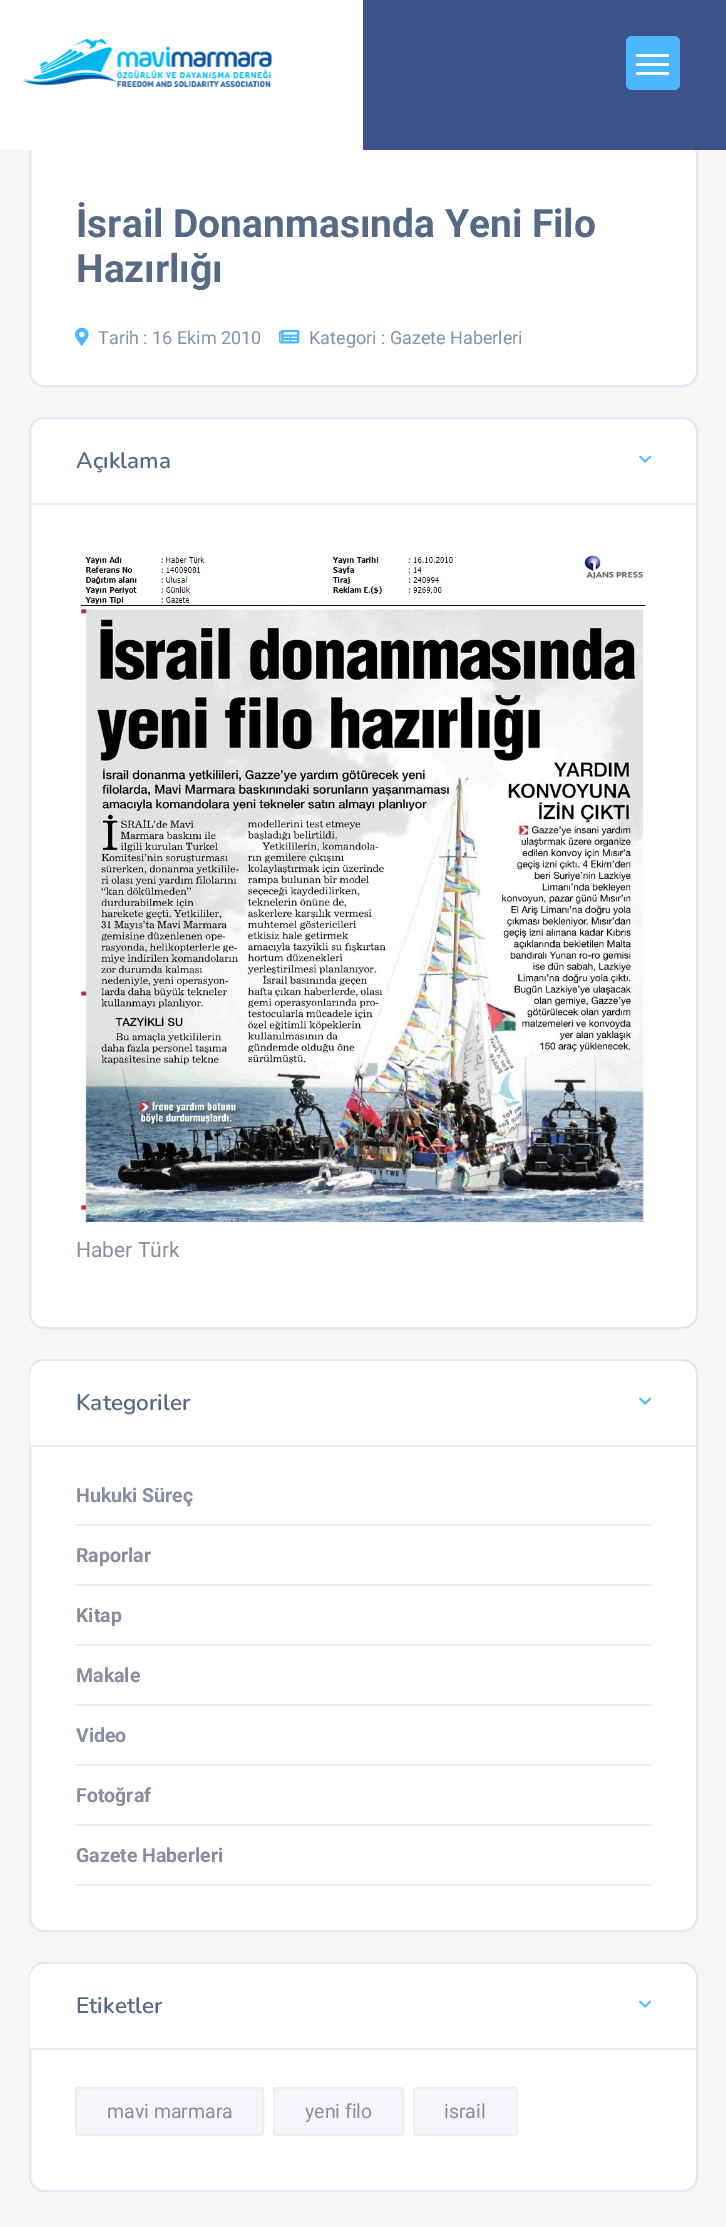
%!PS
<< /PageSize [726 2227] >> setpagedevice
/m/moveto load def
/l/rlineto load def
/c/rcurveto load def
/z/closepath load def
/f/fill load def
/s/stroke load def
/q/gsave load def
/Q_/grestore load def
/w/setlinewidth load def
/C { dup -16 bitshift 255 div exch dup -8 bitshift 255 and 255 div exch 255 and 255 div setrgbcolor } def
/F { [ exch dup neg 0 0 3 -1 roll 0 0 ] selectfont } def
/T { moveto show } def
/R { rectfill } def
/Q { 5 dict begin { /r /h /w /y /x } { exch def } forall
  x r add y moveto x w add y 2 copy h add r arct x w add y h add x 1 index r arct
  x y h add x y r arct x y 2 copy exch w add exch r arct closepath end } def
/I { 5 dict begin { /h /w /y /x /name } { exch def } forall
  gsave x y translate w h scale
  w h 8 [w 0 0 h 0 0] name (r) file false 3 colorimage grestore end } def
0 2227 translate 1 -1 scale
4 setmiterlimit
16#F6F6F6 C
0 0 726 2227 R
16#FFFFFF C
30 141 667 245 14 Q q f Q_
16#E5E7F2 C
2 w
s
16#FFFFFF C
0 0 363 150 R
16#3D528B C
363 0 363 150 R
(1.rgb) 22 39 250 48 I
16#4DB7FE C
626 36 54 54 6 Q f
16#FFFFFF C
636 54 33 3 1.5 Q f
636 63 33 3 1.5 Q f
636 72 33 3 1.5 Q f
/Roboto-Bold 39 F
16#566985 C
(İsrail Donanmasında Yeni Filo) 76 237 T
(Hazırlığı) 76 282 T
(2.rgb) 75 327 14 19 I
/Roboto-Regular 18 F
16#7D93B2 C
(Tarih : 16 Ekim 2010) 98 344 T
(3.rgb) 279 330 21 14 I
(Kategori : Gazete Haberleri) 309 344 T
16#FFFFFF C
30 418 667 910 14 Q q f Q_
16#E5E7F2 C
s
16#EEEEEE C
30 503 666 2 R
/Nunito-SemiBold 22.5 F
16#566985 C
(Açıklama) 76 468 T
(4.rgb) 639 455 13 8 I
(5.rgb) 75 549 571 678 I
/Roboto-Regular 21 F
16#878C9F C
(Haber Türk) 76 1257 T
16#FFFFFF C
30 1360 667 571 14 Q q f Q_
16#E5E7F2 C
s
16#FFFFFF C
45 1361 m 636 0 l 8.5 0 15 6.5 15 15 c 0 70 l -666 0 l 0 -70 l 0 -8.5 6.5 -15 15 -15 c z f
16#EEEEEE C
30 1445 666 2 R
/Nunito-SemiBold 22.5 F
16#566985 C
(Kategoriler) 76 1410 T
(4.rgb) 639 1397 13 8 I
16#EEEEEE C
75 1524 576 2 R
/Roboto-Bold 19.5 F
16#878C9F C
(Hukuki Süreç) 76 1502 T
16#EEEEEE C
75 1584 576 2 R
16#878C9F C
(Raporlar) 76 1562 T
16#EEEEEE C
75 1644 576 2 R
16#878C9F C
(Kitap) 76 1622 T
16#EEEEEE C
75 1704 576 2 R
16#878C9F C
(Makale) 76 1682 T
16#EEEEEE C
75 1764 576 2 R
16#878C9F C
(Video) 76 1742 T
16#EEEEEE C
75 1824 576 2 R
16#878C9F C
(Fotoğraf) 76 1802 T
16#EEEEEE C
75 1884 576 2 R
16#878C9F C
(Gazete Haberleri) 76 1862 T
16#FFFFFF C
30 1963 667 228 14 Q q f Q_
16#E5E7F2 C
s
16#FFFFFF C
45 1964 m 636 0 l 8.5 0 15 6.5 15 15 c 0 70 l -666 0 l 0 -70 l 0 -8.5 6.5 -15 15 -15 c z f
16#EEEEEE C
30 2048 666 2 R
/Nunito-SemiBold 22.5 F
16#566985 C
(Etiketler) 76 2013 T
(4.rgb) 639 2000 13 8 I
16#F5F6FA C
76 2088 187 47 2 Q q f Q_
16#EEEEEE C
s
/Roboto-Regular 19.5 F
16#878C9F C
(mavi marmara) 107 2118 T
16#F5F6FA C
274 2088 129 47 2 Q q f Q_
16#EEEEEE C
s
16#878C9F C
(yeni filo) 305 2118 T
16#F5F6FA C
414 2088 103 47 2 Q q f Q_
16#EEEEEE C
s
16#878C9F C
(israil) 444 2118 T
showpage
